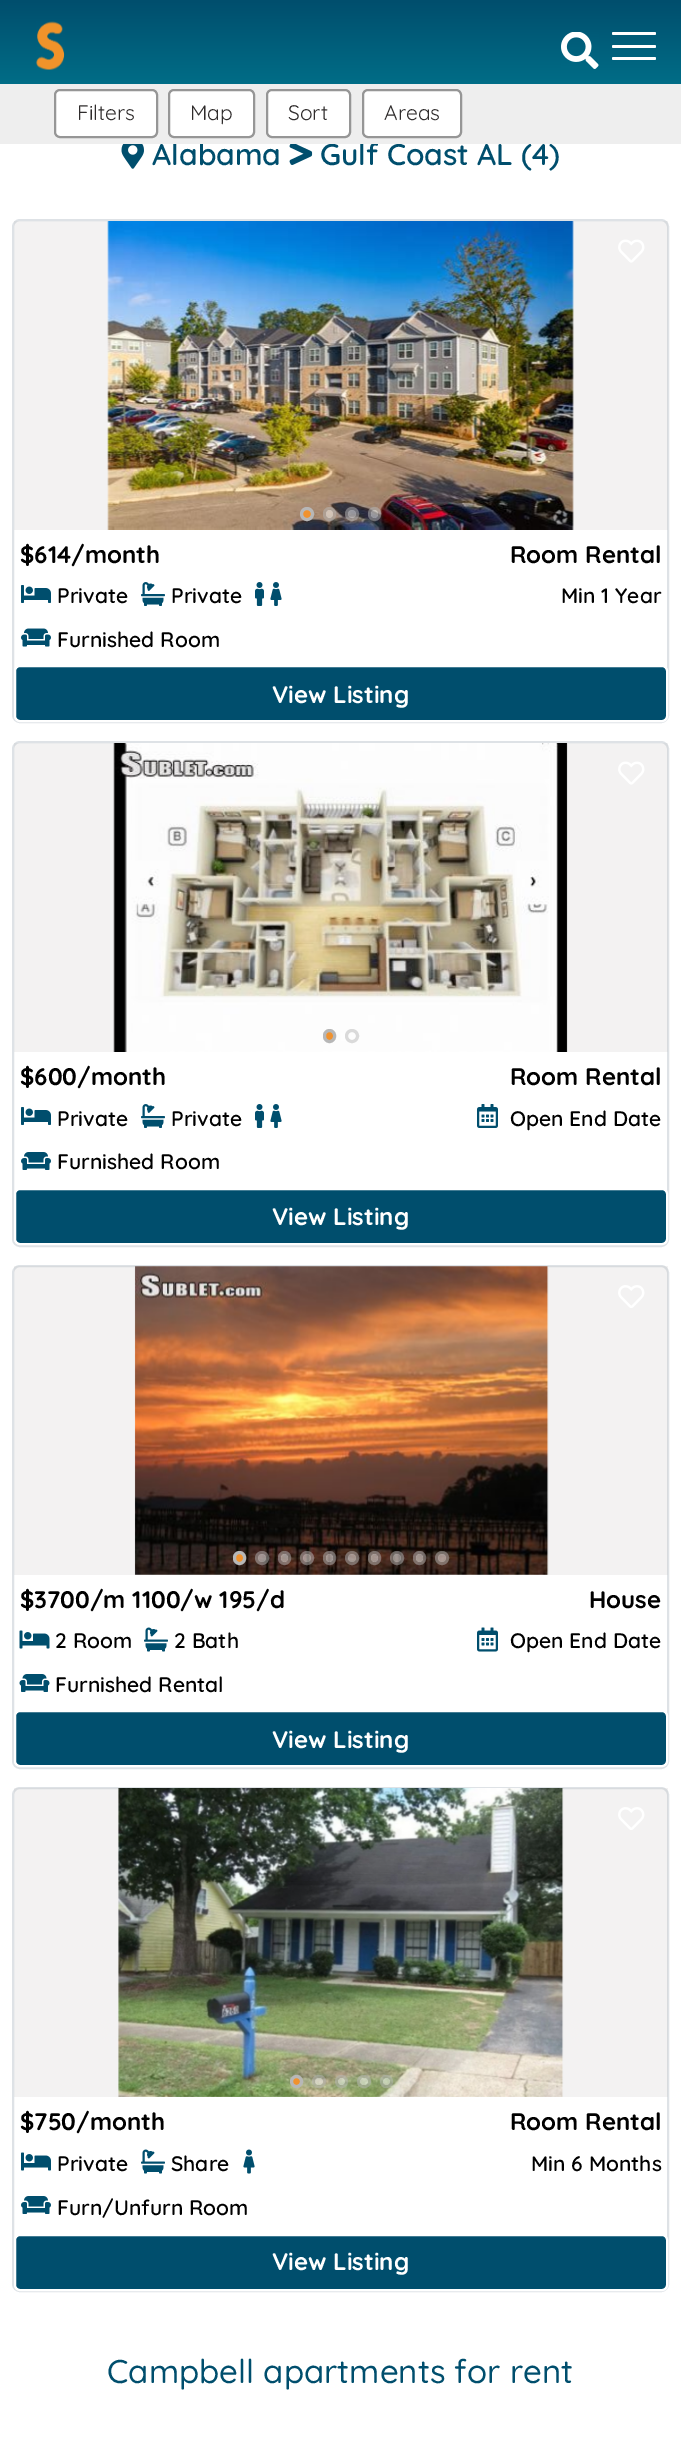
%!PS
<< /PageSize [681 2459] /PageUsesTransparency true >> setpagedevice
/m/moveto load def
/l/rlineto load def
/z/closepath load def
/f/fill load def
/s/stroke load def
/q/gsave load def
/Q_/grestore load def
/w/setlinewidth load def
/C { dup -16 bitshift 255 div exch dup -8 bitshift 255 and 255 div exch 255 and 255 div setrgbcolor } def
/F { [ exch dup neg 0 0 3 -1 roll 0 0 ] selectfont } def
/T { moveto show } def
/R { rectfill } def
/A { dup .setfillconstantalpha .setstrokeconstantalpha } def
/O { newpath 0 360 arc closepath } def
/Q { 5 dict begin { /r /h /w /y /x } { exch def } forall
  x r add y moveto x w add y 2 copy h add r arct x w add y h add x 1 index r arct
  x y h add x y r arct x y 2 copy exch w add exch r arct closepath end } def
/I { 5 dict begin { /h /w /y /x /name } { exch def } forall
  gsave x y translate w h scale
  w h 8 [w 0 0 h 0 0] name (r) file false 3 colorimage grestore end } def
0 .pushpdf14devicefilter
0 2459 translate 1 -1 scale
4 setmiterlimit
16#FFFFFF C
0 0 681 2459 R
q 0 0 m 681 0 l 0 84 l -681 0 l z clip newpath
<< /ShadingType 2 /ColorSpace /DeviceRGB /Coords [0 0 0 84] /Extend [true true] /Function << /FunctionType 2 /Domain [0 1] /C0 [0 .306 .427] /C1 [0 .427 .529] /N 1 >> >> shfill Q_
(1.rgb) 36 21 29 49 I
(2.rgb) 561 32 38 37 I
612 32 44 3 1.5 Q f
612 45 44 3 1.5 Q f
612 57 44 3 1.5 Q f
/Quicksand-SemiBold 30 F
16#004E6D C
(Alabama) 152 165 T
(Gulf Coast AL \(4\)) 320 165 T
16#EEEEEE C
0 84 681 60 R
16#FFFFFF C
55 90 102 47 5 Q q f Q_
16#969696 C
2 w
s
/Quicksand-Regular 21 F
16#2F2C2C C
(Filters) 77 120 T
16#FFFFFF C
169 90 85 47 5 Q q f Q_
16#969696 C
s
16#2F2C2C C
(Map) 190 120 T
16#FFFFFF C
267 90 83 47 5 Q q f Q_
16#969696 C
s
16#2F2C2C C
(Sort) 288 120 T
16#FFFFFF C
363 90 98 47 5 Q q f Q_
16#969696 C
s
16#2F2C2C C
(Areas) 384 120 T
(3.rgb) 121 144 23 25 I
(4.rgb) 289 144 24 21 I
16#DEE2E6 C
13 220 655 502 7 Q s
0.2 A
16#C1C0C0 C
14 221 654 309 R
1 A
(5.rgb) 107 221 467 309 I
16#F0922E C
307 514 5.5 O q f Q_
16#B7B7B7 C
3 w
s
0.5 A
16#FFFFFF C
326 510 7 8 3.5 Q f
16#B7B7B7 C
324.5 508.5 10 11 5 Q s
16#FFFFFF C
352 514 4 O f
16#B7B7B7 C
352 514 5.5 O s
16#FFFFFF C
371 510 7 8 3.5 Q f
16#B7B7B7 C
369.5 508.5 10 11 5 Q s
1 A
(6.rgb) 618 239 27 24 I
/Quicksand-Bold 24 F
16#000000 C
($614/month) 20 563 T
(Room Rental) 510 563 T
(7.rgb) 21 585 30 18 I
/Quicksand-SemiBold 21 F
(Private) 57 603 T
(8.rgb) 141 582 24 24 I
(Private) 171 603 T
(9.rgb) 255 582 9 24 I
(10.rgb) 270 582 12 24 I
(Min 1 Year) 561 603 T
(11.rgb) 21 628 30 19 I
(Furnished Room) 57 647 T
16#004E6D C
15 666 652 55 5 Q q f Q_
16#FFFFFF C
2 w
s
/Quicksand-Bold 24 F
(View Listing) 272 703 T
16#DEE2E6 C
13 742 655 504 7 Q s
0.2 A
16#C1C0C0 C
14 743 654 309 R
1 A
(12.rgb) 113 743 455 309 I
16#F0922E C
324.5 1030.5 10 11 5 Q q f Q_
16#B7B7B7 C
3 w
s
16#DADADA C
352 1036 5.5 O s
(6.rgb) 618 761 27 24 I
16#000000 C
($600/month) 20 1085 T
(Room Rental) 510 1085 T
(7.rgb) 21 1107 30 18 I
/Quicksand-SemiBold 21 F
(Private) 57 1126 T
(8.rgb) 141 1104 24 24 I
(Private) 171 1126 T
(9.rgb) 255 1104 9 24 I
(10.rgb) 270 1104 12 24 I
(13.rgb) 477 1104 21 24 I
(Open End Date) 510 1126 T
(14.rgb) 21 1152 30 18 I
(Furnished Room) 57 1169 T
16#004E6D C
15 1189 652 55 5 Q q f Q_
16#FFFFFF C
2 w
s
/Quicksand-Bold 24 F
(View Listing) 272 1225 T
16#DEE2E6 C
13 1266 655 502 7 Q s
0.2 A
16#C1C0C0 C
14 1266 654 309 R
1 A
(15.rgb) 134 1266 415 309 I
16#F0922E C
234.5 1552.5 10 11 5 Q q f Q_
16#B7B7B7 C
3 w
s
0.5 A
16#FFFFFF C
262 1558 4 O f
16#B7B7B7 C
262 1558 5.5 O s
16#FFFFFF C
281 1554 7 8 3.5 Q f
16#B7B7B7 C
279.5 1552.5 10 11 5 Q s
16#FFFFFF C
307 1558 4 O f
16#B7B7B7 C
307 1558 5.5 O s
16#FFFFFF C
326 1554 7 8 3.5 Q f
16#B7B7B7 C
324.5 1552.5 10 11 5 Q s
16#FFFFFF C
352 1558 4 O f
16#B7B7B7 C
352 1558 5.5 O s
16#FFFFFF C
371 1554 7 8 3.5 Q f
16#B7B7B7 C
369.5 1552.5 10 11 5 Q s
16#FFFFFF C
397 1558 4 O f
16#B7B7B7 C
397 1558 5.5 O s
16#FFFFFF C
416 1554 7 8 3.5 Q f
16#B7B7B7 C
414.5 1552.5 10 11 5 Q s
16#FFFFFF C
442 1558 4 O f
16#B7B7B7 C
442 1558 5.5 O s
1 A
(16.rgb) 618 1285 27 23 I
16#000000 C
($3700/m 1100/w 195/d) 20 1608 T
(House) 589 1608 T
(17.rgb) 19 1630 31 19 I
/Quicksand-SemiBold 21 F
(2 Room) 55 1648 T
(18.rgb) 144 1627 24 25 I
(2 Bath) 174 1648 T
(19.rgb) 477 1627 21 25 I
(Open End Date) 510 1648 T
(20.rgb) 19 1674 31 18 I
(Furnished Rental) 55 1692 T
16#004E6D C
15 1711 652 55 5 Q q f Q_
16#FFFFFF C
2 w
s
/Quicksand-Bold 24 F
(View Listing) 272 1748 T
16#DEE2E6 C
13 1788 655 503 7 Q s
0.2 A
16#C1C0C0 C
14 1788 654 309 R
1 A
(21.rgb) 118 1788 446 309 I
16#F0922E C
296.5 2081.5 5 O q f Q_
16#B7B7B7 C
3 w
s
0.5 A
16#FFFFFF C
315 2078 8 7 3.5 Q f
16#B7B7B7 C
313.5 2076.5 11 10 5 Q s
16#FFFFFF C
341.5 2081.5 3.5 O f
16#B7B7B7 C
341.5 2081.5 5 O s
16#FFFFFF C
360 2078 8 7 3.5 Q f
16#B7B7B7 C
358.5 2076.5 11 10 5 Q s
16#FFFFFF C
386.5 2081.5 3.5 O f
16#B7B7B7 C
386.5 2081.5 5 O s
1 A
(16.rgb) 618 1807 27 23 I
16#000000 C
($750/month) 20 2130 T
(Room Rental) 510 2130 T
(22.rgb) 21 2152 30 19 I
/Quicksand-SemiBold 21 F
(Private) 57 2171 T
(18.rgb) 141 2149 24 25 I
(Share) 171 2171 T
(23.rgb) 243 2149 12 25 I
(Min 6 Months) 531 2171 T
(14.rgb) 21 2196 30 18 I
(Furn/Unfurn Room) 57 2215 T
16#004E6D C
15 2235 652 55 5 Q q f Q_
16#FFFFFF C
2 w
s
/Quicksand-Bold 24 F
(View Listing) 272 2270 T
/Quicksand-Medium 33 F
16#004E6D C
(Campbell apartments for rent) 107 2383 T
.poppdf14devicefilter showpage
